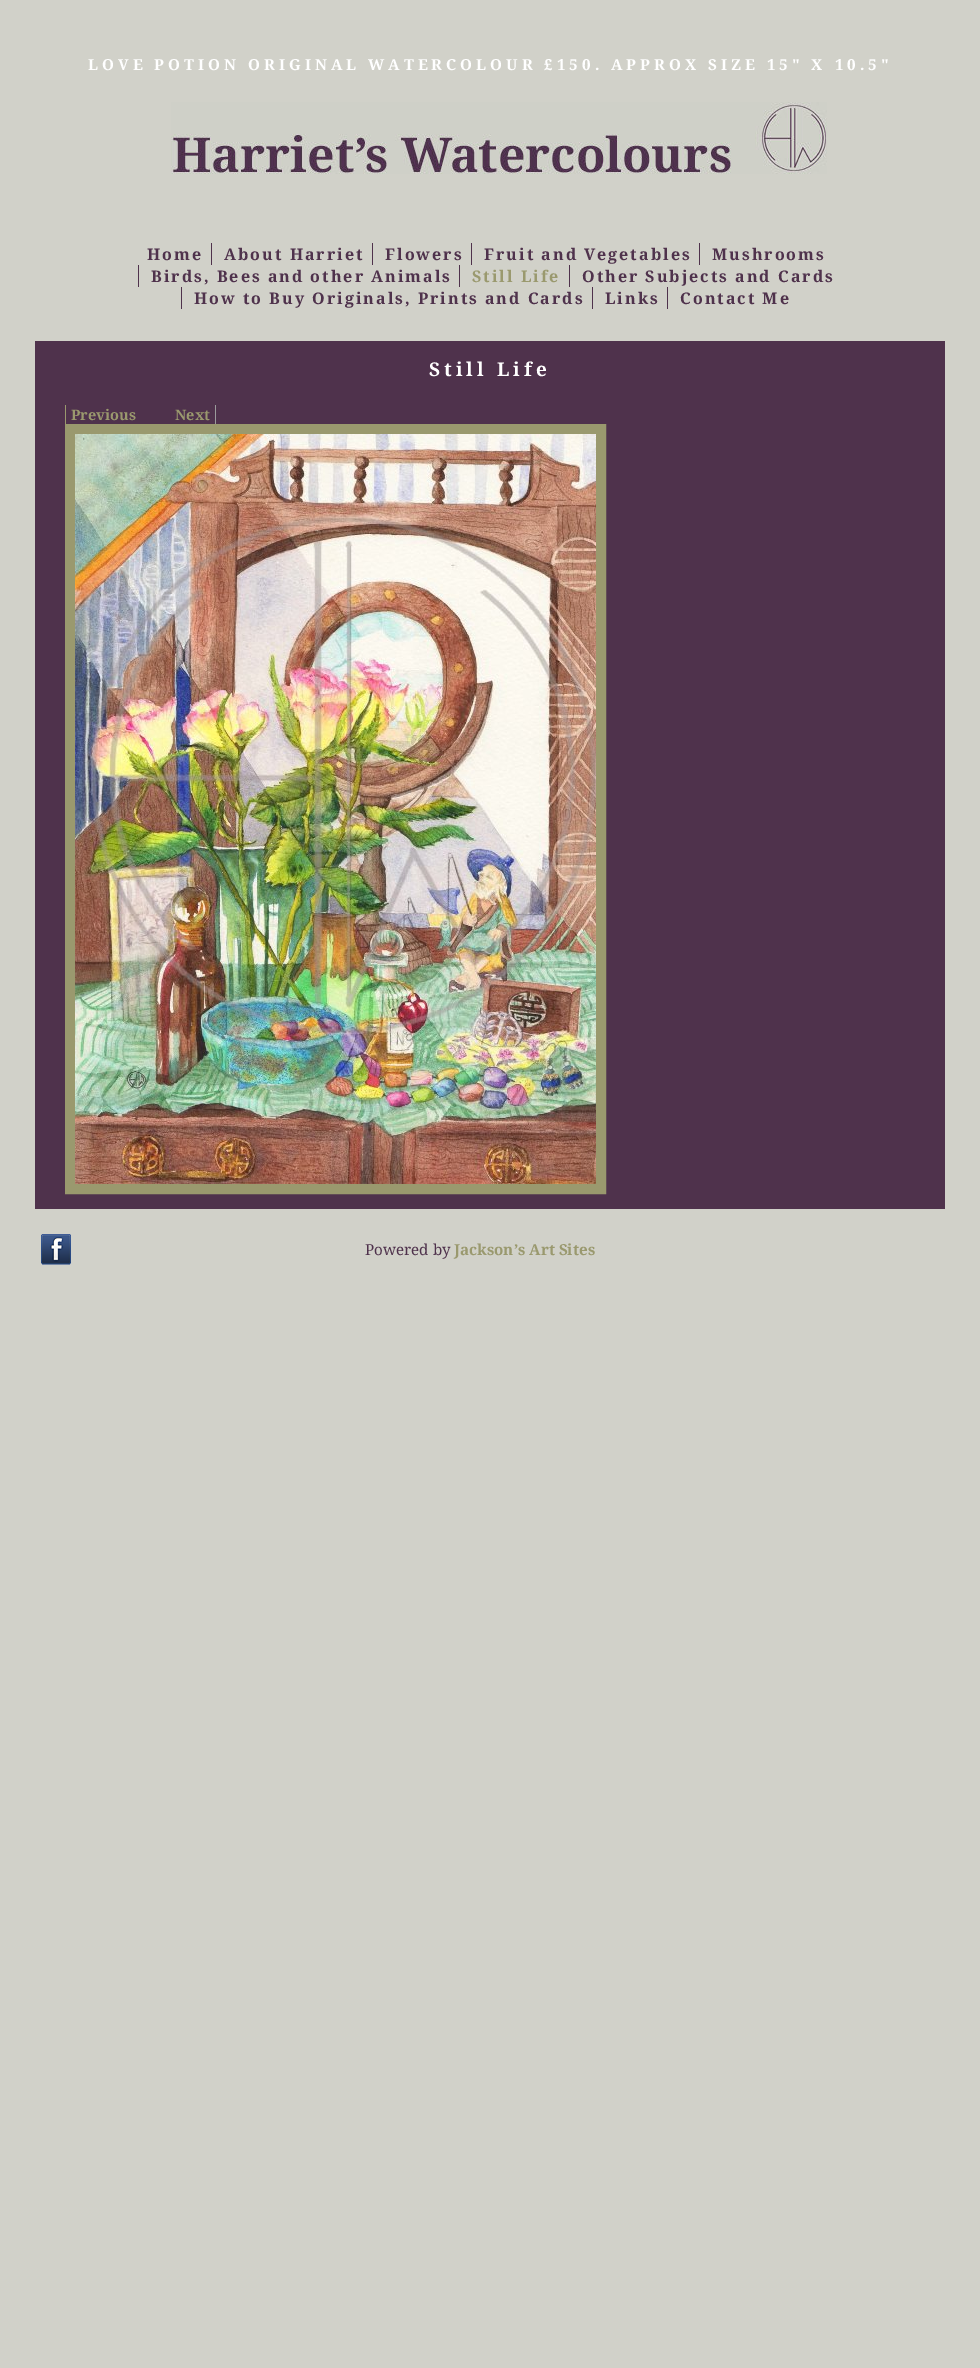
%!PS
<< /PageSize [980 2368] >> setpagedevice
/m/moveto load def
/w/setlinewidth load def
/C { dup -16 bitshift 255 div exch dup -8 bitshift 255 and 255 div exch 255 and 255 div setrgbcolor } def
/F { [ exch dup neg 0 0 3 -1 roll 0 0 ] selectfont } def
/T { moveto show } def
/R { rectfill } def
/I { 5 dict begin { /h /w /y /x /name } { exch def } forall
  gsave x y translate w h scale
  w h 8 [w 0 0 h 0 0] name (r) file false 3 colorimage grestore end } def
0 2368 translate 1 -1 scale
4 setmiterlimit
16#D1D1C9 C
0 0 980 2368 R
/NotoSerif-Bold 15.2 F
16#FFFFFF C
88 70 m 4 0 (LOVE POTION ORIGINAL WATERCOLOUR £150.) ashow
611 70 m 4 0 (APPROX SIZE 15" X 10.5") ashow
(1.rgb) 171 102 656 72 I
/NotoSerif-Bold 16 F
16#4F324C C
147 260 m 2 0 (Home) ashow
211 243 1 22 R
224 260 m 2 0 (About Harriet) ashow
372 243 1 22 R
385 260 m 2 0 (Flowers) ashow
471 243 1 22 R
484 260 m 2 0 (Fruit and Vegetables) ashow
699 243 1 22 R
712 260 m 2 0 (Mushrooms) ashow
138 265 1 22 R
151 282 m 2 0 (Birds, Bees and other Animals) ashow
459 265 1 22 R
16#9A996E C
472 282 m 2 0 (Still Life) ashow
16#4F324C C
569 265 1 22 R
582 282 m 2 0 (Other Subjects and Cards) ashow
181 287 1 22 R
194 304 m 2 0 (How to Buy Originals, Prints and Cards) ashow
592 287 1 22 R
605 304 m 2 0 (Links) ashow
667 287 1 22 R
680 304 m 2 0 (Contact Me) ashow
35 341 910 868 R
/NotoSerif-Bold 19 F
16#FFFFFF C
429 376 m 4 0 (Still Life) ashow
16#9A996E C
65 405 1 19 R
/NotoSerif-Bold 14.5 F
(Previous) 71 420 T
16#9B9B9B C
215 405 1 19 R
16#9A996E C
(Next) 175 420 T
10 w
70 429 531 760 rectstroke
(2.rgb) 75 434 521 750 I
(3.rgb) 41 1234 30 31 I
/NotoSerif-Regular 15.2 F
16#4F324C C
(Powered by) 365 1255 T
/NotoSerif-Bold 15.2 F
16#9A996E C
(Jackson’s Art Sites) 454 1255 T
showpage
